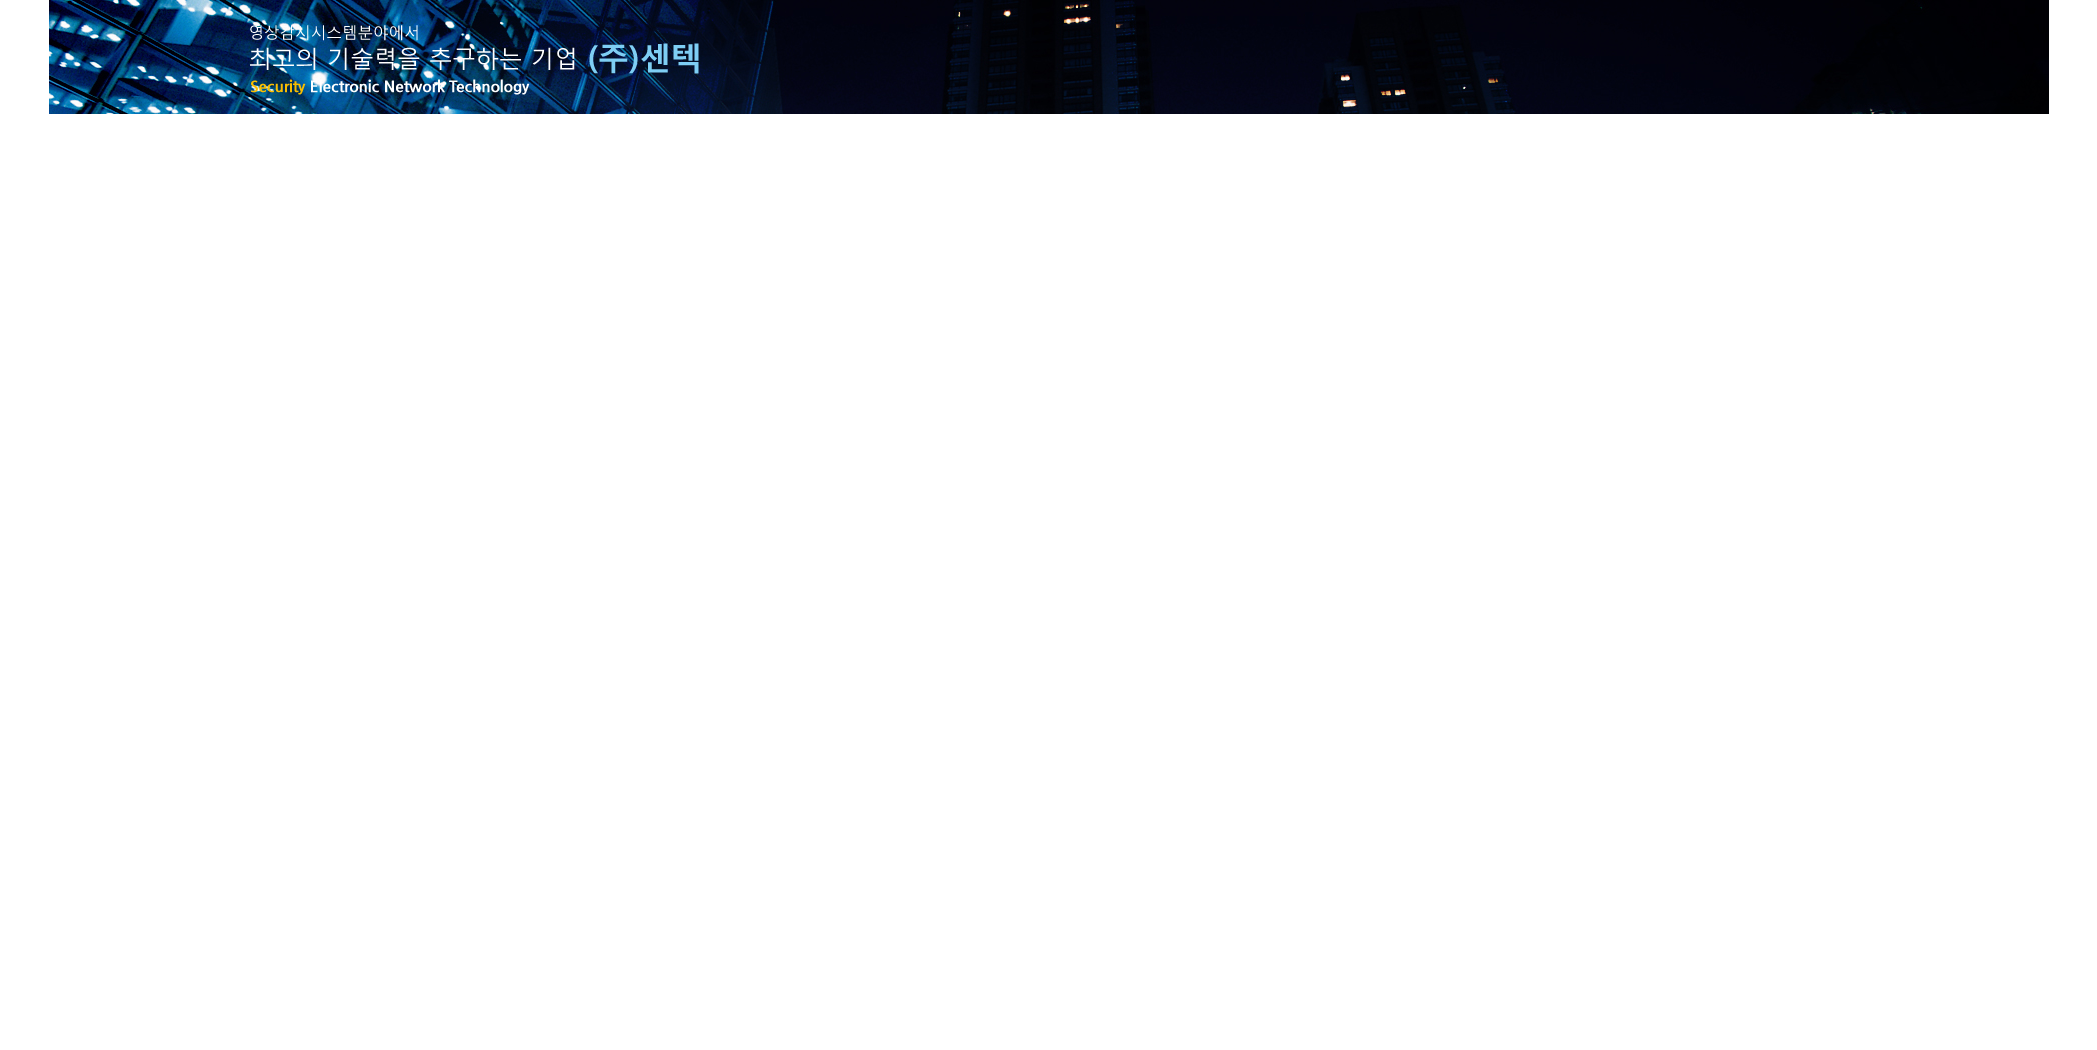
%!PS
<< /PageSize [2097 1050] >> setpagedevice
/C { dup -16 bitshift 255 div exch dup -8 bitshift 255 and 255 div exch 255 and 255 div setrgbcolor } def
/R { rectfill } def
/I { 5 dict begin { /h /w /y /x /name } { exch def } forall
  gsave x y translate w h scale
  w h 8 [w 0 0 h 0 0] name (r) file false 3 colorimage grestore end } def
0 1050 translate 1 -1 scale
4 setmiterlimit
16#FFFFFF C
0 0 2097 1050 R
(1.rgb) 49 0 2000 114 I
(2.rgb) 250 25 449 70 I
showpage
